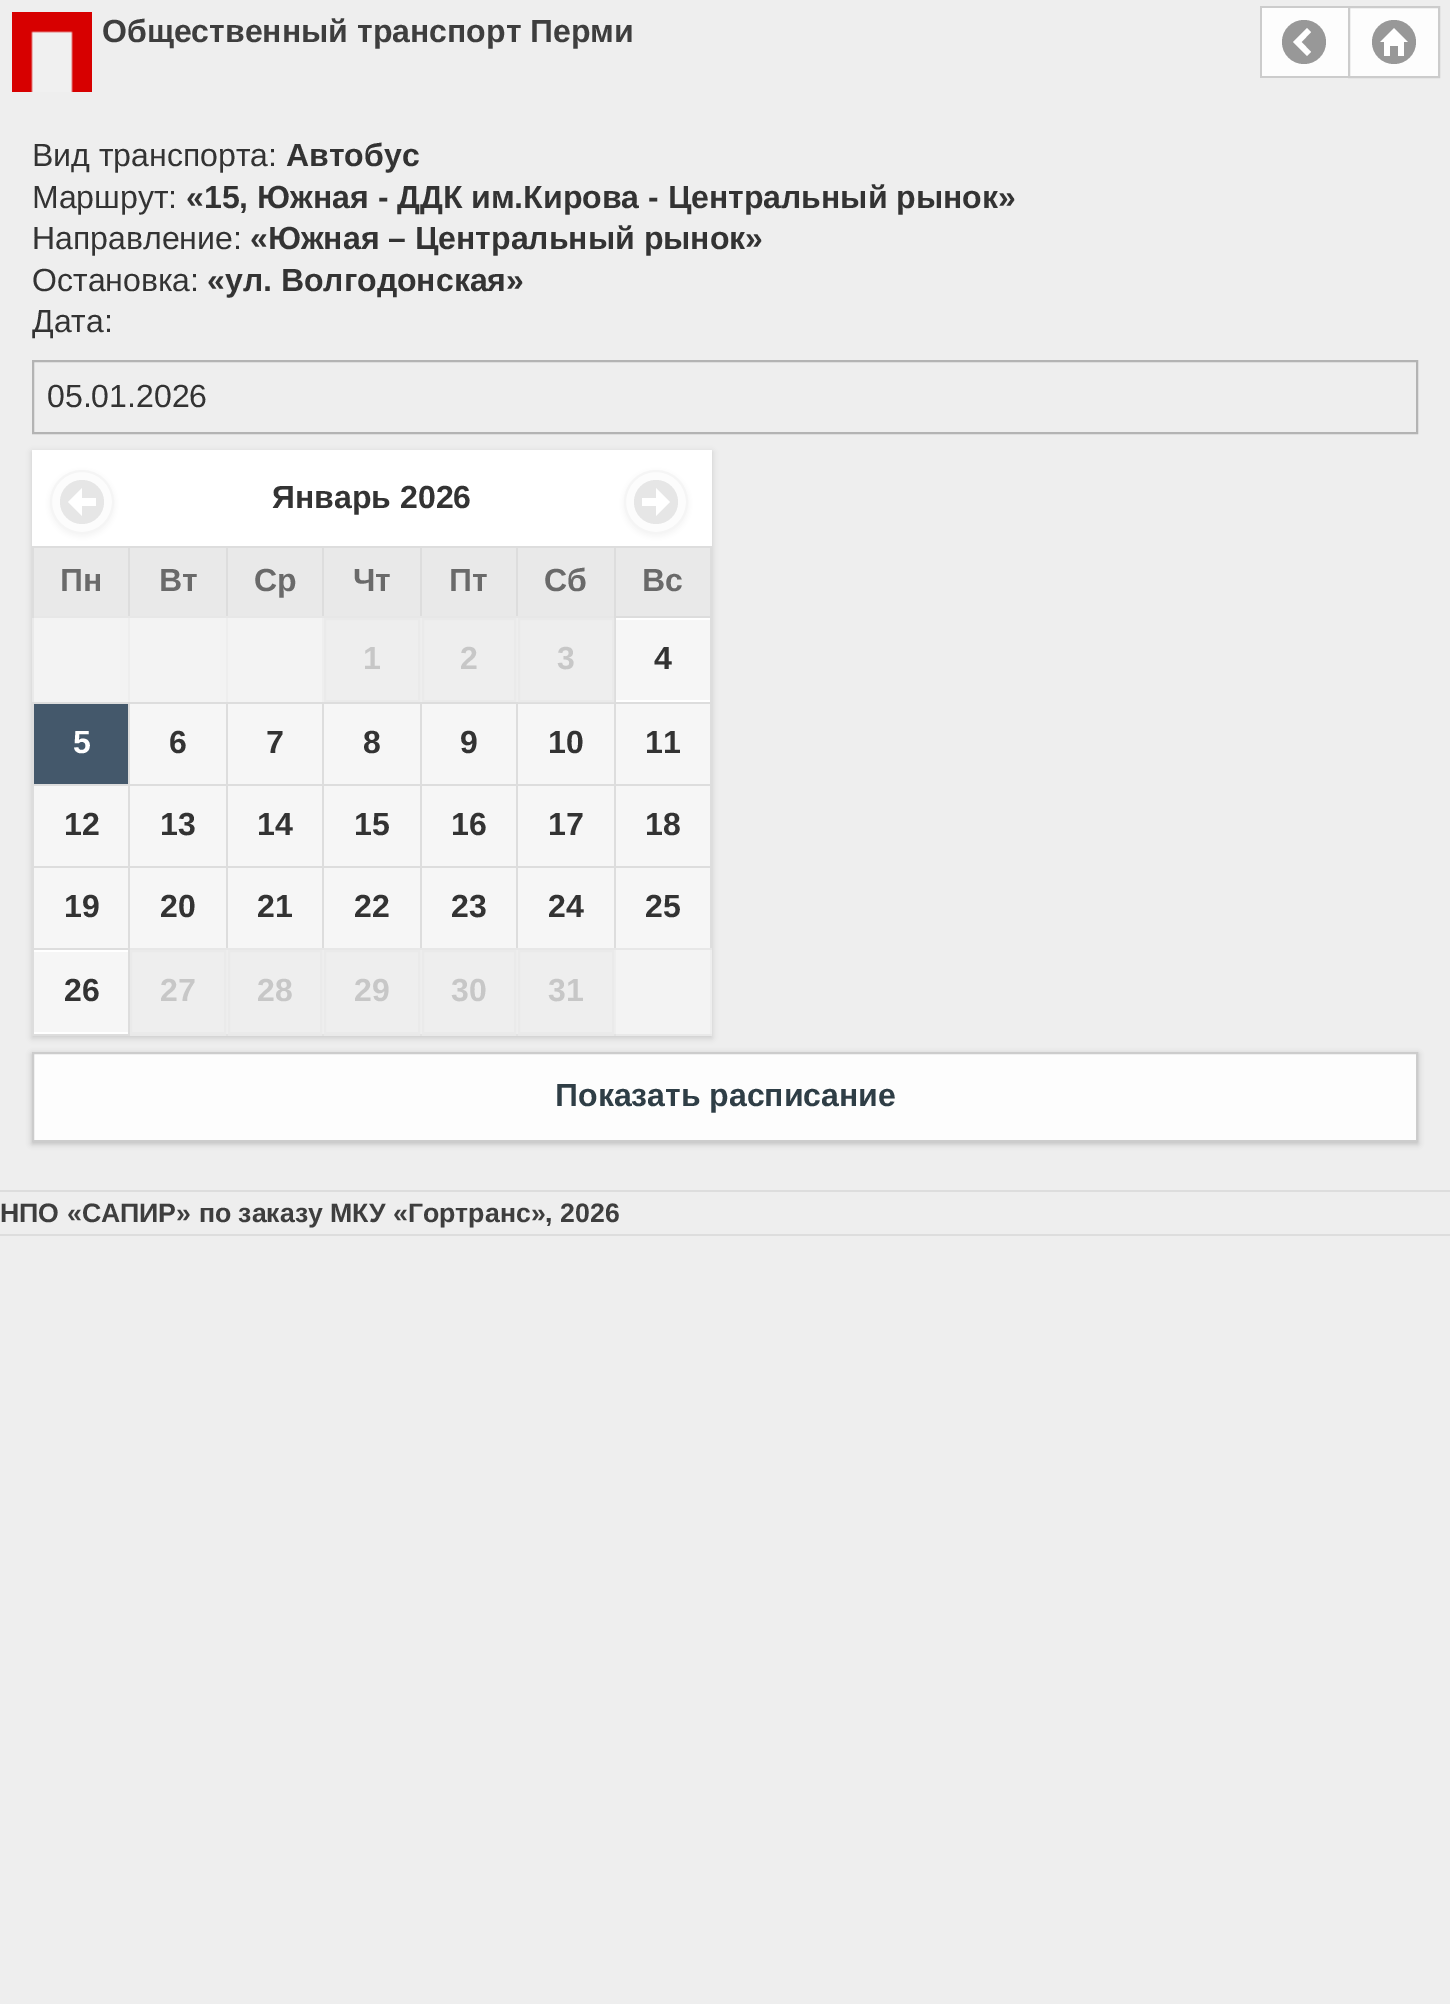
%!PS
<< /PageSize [1450 2004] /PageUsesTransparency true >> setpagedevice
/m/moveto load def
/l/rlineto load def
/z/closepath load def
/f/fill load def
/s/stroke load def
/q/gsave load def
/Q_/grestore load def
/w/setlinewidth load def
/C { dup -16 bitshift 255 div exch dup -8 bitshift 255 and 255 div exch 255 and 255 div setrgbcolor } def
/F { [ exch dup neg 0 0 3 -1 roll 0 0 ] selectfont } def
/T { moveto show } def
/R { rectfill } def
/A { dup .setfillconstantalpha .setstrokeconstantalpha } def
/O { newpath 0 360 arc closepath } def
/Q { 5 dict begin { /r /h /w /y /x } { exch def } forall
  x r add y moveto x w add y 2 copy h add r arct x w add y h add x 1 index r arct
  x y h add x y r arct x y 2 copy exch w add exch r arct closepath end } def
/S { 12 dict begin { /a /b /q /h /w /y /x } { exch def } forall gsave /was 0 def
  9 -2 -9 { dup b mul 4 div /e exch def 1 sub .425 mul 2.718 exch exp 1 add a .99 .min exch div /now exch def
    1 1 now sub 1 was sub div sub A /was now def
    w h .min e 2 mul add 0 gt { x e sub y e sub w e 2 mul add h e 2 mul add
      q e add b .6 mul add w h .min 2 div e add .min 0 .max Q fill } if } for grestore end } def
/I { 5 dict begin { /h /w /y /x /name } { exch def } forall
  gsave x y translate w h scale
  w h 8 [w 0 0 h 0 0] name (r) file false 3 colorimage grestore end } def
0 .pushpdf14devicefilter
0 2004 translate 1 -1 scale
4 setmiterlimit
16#EEEEEE C
0 0 1450 2004 R
16#F3F3F3 C
616 950 94 84 R
228 618 94 84 R
130 618 96 84 R
34 618 94 84 R
16#E9E9E9 C
32 616 2 88 R
128 1034 488 2 R
(1.rgb) 12 12 80 80 I
/LiberationSans-Bold 32 F
16#3E3E3E C
(Общественный транспорт Перми) 102 42 T
16#FDFDFD C
1262 8 86 68 R
16#CCCCCC C
1260 6 88 2 R
1260 76 88 2 R
1260 6 2 72 R
16#989898 C
1304 42 22 O f
16#FFFFFF C
1311 52 m -9.5 -10 l 9.5 -10 l -4 -4 l -14 14 l 14 14 l z f
16#FDFDFD C
1349 7 m 90 0 l 0 70 l -90 0 l z q f Q_
16#CCCCCC C
2 w
s
16#989898 C
1394 42 22 O f
(2.rgb) 1380 28 28 28 I
/LiberationSans-Regular 32 F
16#333333 C
(Вид транспорта:) 32 166 T
/LiberationSans-Bold 32 F
(Автобус) 286 166 T
/LiberationSans-Regular 32 F
(Маршрут:) 32 208 T
/LiberationSans-Bold 32 F
(«15, Южная - ДДК им.Кирова - Центральный рынок») 186 208 T
/LiberationSans-Regular 32 F
(Направление:) 32 249 T
/LiberationSans-Bold 32 F
(«Южная – Центральный рынок») 250 249 T
/LiberationSans-Regular 32 F
(Остановка:) 32 291 T
/LiberationSans-Bold 32 F
(«ул. Волгодонская») 207 291 T
/LiberationSans-Regular 32 F
(Дата:) 32 332 T
16#B3B3B3 C
33 361 1384 72 rectstroke
16#333333 C
(05.01.2026) 47 407 T
q
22 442 m 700 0 l 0 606 l -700 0 l z 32 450 m 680 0 l 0 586 l -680 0 l z eoclip newpath
16#000000 C
32 452 680 586 0 3 .15 S
Q_
16#FFFFFF C
32 450 680 96 R
16#B3B3B3 C
50 472 64 64 32 3 .15 S
16#FCFCFC C
82 502 31 O q f Q_
16#F5F5F5 C
s
16#E6E6E6 C
82 502 22 O f
16#FFFFFF C
82 498 m 0 -10 l -14 14 l 14 14 l 0 -10 l 14 0 l 0 -8 l z f
/LiberationSans-Bold 32 F
16#333333 C
(Январь 2026) 272 508 T
16#B3B3B3 C
624 472 64 64 32 3 .15 S
16#FCFCFC C
656 502 31 O q f Q_
16#F5F5F5 C
s
16#E6E6E6 C
656 502 22 O f
16#FFFFFF C
670 502 m -14 -14 l 0 10 l -14 0 l 0 8 l 14 0 l 0 10 l z f
16#E9E9E9 C
34 548 94 68 R
16#DDDDDD C
614 546 98 2 R
614 616 98 2 R
614 702 98 2 R
614 784 98 2 R
614 866 98 2 R
710 866 2 84 R
16#E7E7E7 C
614 948 98 2 R
16#DDDDDD C
614 866 2 84 R
516 866 100 2 R
614 784 2 84 R
516 784 100 2 R
614 702 2 84 R
516 702 100 2 R
614 616 2 88 R
614 546 2 72 R
516 546 100 2 R
516 546 2 72 R
420 546 98 2 R
16#E7E7E7 C
420 616 98 2 R
16#DDDDDD C
420 546 2 72 R
322 546 100 2 R
322 546 2 72 R
226 546 98 2 R
16#E7E7E7 C
226 616 98 2 R
16#DDDDDD C
226 546 2 72 R
128 546 100 2 R
128 546 2 72 R
32 546 98 2 R
16#E7E7E7 C
34 616 96 2 R
16#DDDDDD C
32 546 2 72 R
16#6A6A6A C
(Пн) 60 591 T
16#E9E9E9 C
130 548 96 68 R
16#E7E7E7 C
130 616 98 2 R
16#6A6A6A C
(Вт) 159 591 T
16#E9E9E9 C
228 548 94 68 R
16#6A6A6A C
(Ср) 254 591 T
16#E9E9E9 C
324 548 96 68 R
16#E7E7E7 C
324 616 98 2 R
16#6A6A6A C
(Чт) 353 591 T
16#E9E9E9 C
422 548 94 68 R
16#6A6A6A C
(Пт) 449 591 T
16#E9E9E9 C
518 548 96 68 R
16#E7E7E7 C
518 616 96 2 R
16#6A6A6A C
(Сб) 544 591 T
16#E9E9E9 C
616 548 94 68 R
16#DDDDDD C
710 784 2 84 R
710 702 2 84 R
710 616 2 88 R
710 546 2 72 R
16#6A6A6A C
(Вс) 642 591 T
16#EAEAEA C
325 619 94 82 rectstroke
16#C7C7C7 C
(1) 363 669 T
16#EAEAEA C
423 619 92 82 rectstroke
16#C7C7C7 C
(2) 460 669 T
16#EAEAEA C
519 619 94 82 rectstroke
16#C7C7C7 C
(3) 557 669 T
16#FFFFFF C
616 618 94 84 R
16#F6F6F6 C
616 620 94 80 R
16#333333 C
(4) 654 669 T
16#DDDDDD C
516 866 2 84 R
420 866 98 2 R
516 784 2 84 R
420 784 98 2 R
516 702 2 84 R
420 702 98 2 R
16#E7E7E7 C
420 948 98 2 R
16#DDDDDD C
420 866 2 84 R
322 866 100 2 R
420 784 2 84 R
322 784 100 2 R
420 702 2 84 R
322 702 100 2 R
322 866 2 84 R
226 866 98 2 R
322 784 2 84 R
226 784 98 2 R
322 702 2 84 R
226 702 98 2 R
16#E7E7E7 C
226 948 98 2 R
16#DDDDDD C
226 866 2 84 R
128 866 100 2 R
226 784 2 84 R
128 784 100 2 R
226 702 2 84 R
128 702 100 2 R
32 948 98 2 R
128 948 2 88 R
128 866 2 84 R
32 866 98 2 R
128 784 2 84 R
32 784 98 2 R
128 702 2 84 R
32 702 98 2 R
32 1034 98 2 R
32 948 2 88 R
32 866 2 84 R
32 784 2 84 R
32 702 2 84 R
16#44586B C
34 704 94 80 R
16#FFFFFF C
(5) 73 753 T
16#F6F6F6 C
130 704 96 80 R
16#333333 C
(6) 169 753 T
16#F6F6F6 C
228 704 94 80 R
16#333333 C
(7) 266 753 T
16#F6F6F6 C
324 704 96 80 R
16#333333 C
(8) 363 753 T
16#F6F6F6 C
422 704 94 80 R
16#333333 C
(9) 460 753 T
16#F6F6F6 C
518 704 96 80 R
16#333333 C
(10) 548 753 T
16#F6F6F6 C
616 704 94 80 R
16#333333 C
(11) 645 753 T
16#F6F6F6 C
34 786 94 80 R
16#333333 C
(12) 64 835 T
16#F6F6F6 C
130 786 96 80 R
16#333333 C
(13) 160 835 T
16#F6F6F6 C
228 786 94 80 R
16#333333 C
(14) 257 835 T
16#F6F6F6 C
324 786 96 80 R
16#333333 C
(15) 354 835 T
16#F6F6F6 C
422 786 94 80 R
16#333333 C
(16) 451 835 T
16#F6F6F6 C
518 786 96 80 R
16#333333 C
(17) 548 835 T
16#F6F6F6 C
616 786 94 80 R
16#333333 C
(18) 645 835 T
16#F6F6F6 C
34 868 94 80 R
16#333333 C
(19) 64 917 T
16#E7E7E7 C
130 948 98 2 R
16#F6F6F6 C
130 868 96 80 R
16#333333 C
(20) 160 917 T
16#F6F6F6 C
228 868 94 80 R
16#333333 C
(21) 257 917 T
16#E7E7E7 C
324 948 98 2 R
16#F6F6F6 C
324 868 96 80 R
16#333333 C
(22) 354 917 T
16#F6F6F6 C
422 868 94 80 R
16#333333 C
(23) 451 917 T
16#E7E7E7 C
518 948 98 2 R
16#F6F6F6 C
518 868 96 80 R
16#333333 C
(24) 548 917 T
16#F6F6F6 C
616 868 94 80 R
16#333333 C
(25) 645 917 T
16#FFFFFF C
34 950 94 84 R
16#F6F6F6 C
34 952 94 80 R
16#333333 C
(26) 64 1001 T
16#E3E3E3 C
226 1034 2 2 R
16#EAEAEA C
131 951 94 82 rectstroke
16#C7C7C7 C
(27) 160 1001 T
16#E3E3E3 C
322 1034 2 2 R
16#EAEAEA C
229 951 92 82 rectstroke
16#C7C7C7 C
(28) 257 1001 T
16#E3E3E3 C
420 1034 2 2 R
16#EAEAEA C
325 951 94 82 rectstroke
16#C7C7C7 C
(29) 354 1001 T
16#E3E3E3 C
516 1034 2 2 R
16#EAEAEA C
423 951 92 82 rectstroke
16#C7C7C7 C
(30) 451 1001 T
16#E9E9E9 C
614 1034 98 2 R
16#E3E3E3 C
614 1034 2 2 R
16#EAEAEA C
519 951 94 82 rectstroke
16#C7C7C7 C
(31) 548 1001 T
16#000000 C
32 1054 1386 90 0 3 .2 S
16#FDFDFD C
33 1053 m 1384 0 l 0 88 l -1384 0 l z q f Q_
16#CCCCCC C
s
16#2F3E46 C
(Показать расписание) 555 1106 T
16#DDDDDD C
0 1190 1450 2 R
0 1234 1450 2 R
/LiberationSans-Bold 26.7 F
16#3E3E3E C
(НПО «САПИР» по заказу МКУ «Гортранс», 2026) 0 1222 T
.poppdf14devicefilter showpage
